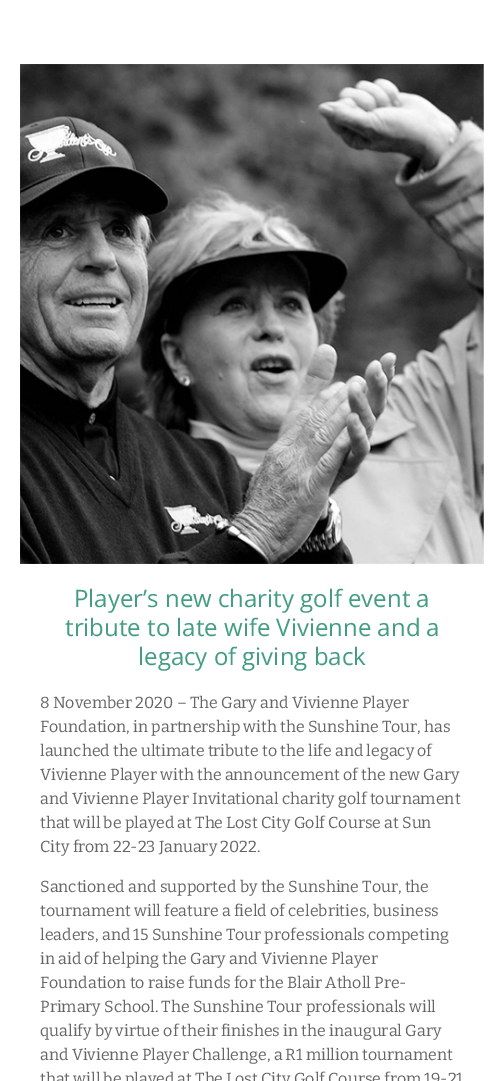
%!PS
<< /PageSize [504 1081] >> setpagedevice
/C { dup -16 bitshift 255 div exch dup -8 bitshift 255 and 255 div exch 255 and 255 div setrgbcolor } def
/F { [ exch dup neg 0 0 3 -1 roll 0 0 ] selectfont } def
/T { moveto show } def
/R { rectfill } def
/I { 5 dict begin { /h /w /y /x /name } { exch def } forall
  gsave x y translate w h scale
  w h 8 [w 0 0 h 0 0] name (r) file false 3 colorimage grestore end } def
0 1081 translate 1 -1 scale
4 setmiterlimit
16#FFFFFF C
0 0 504 1081 R
(1.rgb) 20 64 464 500 I
/OpenSans-Regular 24 F
16#429D82 C
(Player’s new charity golf event a) 74 607 T
(tribute to late wife Vivienne and a) 65 636 T
(legacy of giving back) 138 665 T
/Bitter-Regular 16 F
16#656565 C
(8 November 2020 – The Gary and Vivienne Player) 40 708 T
(Foundation, in partnership with the Sunshine Tour, has) 40 732 T
(launched the ultimate tribute to the life and legacy of) 40 756 T
(Vivienne Player with the announcement of the new Gary) 40 780 T
(and Vivienne Player Invitational charity golf tournament) 40 804 T
(that will be played at The Lost City Golf Course at Sun) 40 828 T
(City from 22-23 January 2022.) 40 852 T
(Sanctioned and supported by the Sunshine Tour, the) 40 892 T
(tournament will feature a field of celebrities, business) 40 916 T
(leaders, and 15 Sunshine Tour professionals competing) 40 940 T
(in aid of helping the Gary and Vivienne Player) 40 964 T
(Foundation to raise funds for the Blair Atholl Pre-) 40 988 T
(Primary School. The Sunshine Tour professionals will) 40 1012 T
(qualify by virtue of their finishes in the inaugural Gary) 40 1036 T
(and Vivienne Player Challenge, a R1 million tournament) 40 1060 T
(that will be played at The Lost City Golf Course from 19-21) 40 1084 T
showpage
